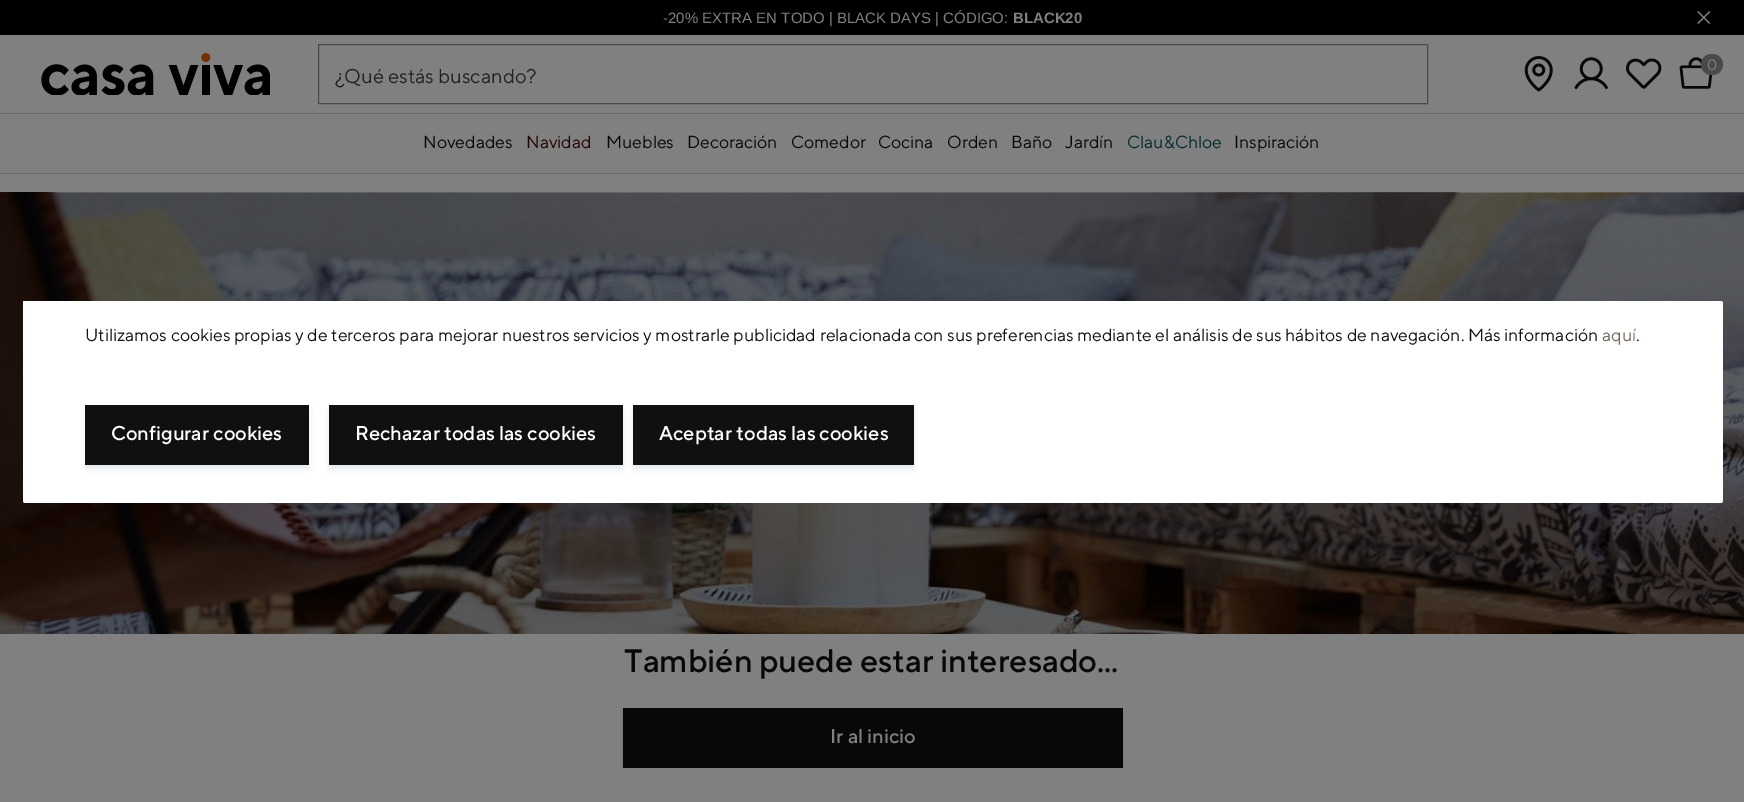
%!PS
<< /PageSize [1744 802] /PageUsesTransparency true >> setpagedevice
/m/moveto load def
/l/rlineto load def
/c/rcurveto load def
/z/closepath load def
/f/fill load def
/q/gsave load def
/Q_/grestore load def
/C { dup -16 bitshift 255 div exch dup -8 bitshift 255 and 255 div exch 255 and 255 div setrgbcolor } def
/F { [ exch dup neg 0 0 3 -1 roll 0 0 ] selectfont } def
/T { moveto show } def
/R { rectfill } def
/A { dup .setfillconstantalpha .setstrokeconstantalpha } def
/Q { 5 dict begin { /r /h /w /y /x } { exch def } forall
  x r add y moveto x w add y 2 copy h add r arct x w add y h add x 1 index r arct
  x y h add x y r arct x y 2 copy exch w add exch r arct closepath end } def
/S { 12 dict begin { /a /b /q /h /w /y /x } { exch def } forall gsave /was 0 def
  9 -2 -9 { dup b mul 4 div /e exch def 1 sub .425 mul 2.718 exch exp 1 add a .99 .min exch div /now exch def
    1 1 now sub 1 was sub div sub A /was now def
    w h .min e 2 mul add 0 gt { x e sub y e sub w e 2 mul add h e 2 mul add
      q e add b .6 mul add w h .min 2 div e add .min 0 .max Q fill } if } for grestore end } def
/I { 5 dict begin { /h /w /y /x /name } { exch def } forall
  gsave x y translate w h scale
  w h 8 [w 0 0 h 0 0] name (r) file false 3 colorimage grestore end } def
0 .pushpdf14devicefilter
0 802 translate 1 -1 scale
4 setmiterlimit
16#808080 C
0 0 1744 802 R
16#686969 C
0 173 1744 1 R
16#000000 C
0 0 1744 35 R
/LiberationSans-Regular 15 F
16#808080 C
(-20% EXTRA EN TODO | BLACK DAYS | CÓDIGO:) 663 23 T
/LiberationSans-Bold 15 F
(BLACK20) 1013 23 T
(1.rgb) 1697 11 14 13 I
16#686969 C
0 113 1744 1 R
(2.rgb) 41 53 229 42 I
(3.rgb) 1524 56 29 36 I
(4.rgb) 1574 57 34 32 I
(5.rgb) 1626 58 36 31 I
(6.rgb) 1679 57 34 32 I
16#4A4A4A C
1701 54 22 21 10.5 Q f
/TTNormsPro-Regular 15 F
16#808080 C
(0) 1707 70 T
16#4A4A4A C
318.5 44.5 1109 59 rectstroke
/TTNormsPro-Regular 20 F
16#212121 C
(¿Qué estás buscando?) 335 83 T
/TTNormsPro-Regular 17.5 F
16#080808 C
(Novedades) 423 148 T
16#250103 C
(Navidad) 526 148 T
16#080808 C
(Muebles) 606 148 T
(Decoración) 687 148 T
(Comedor) 791 148 T
(Cocina) 878 148 T
(Orden) 947 148 T
(Baño) 1011 148 T
(Jardín) 1065 148 T
16#042B2C C
(Clau&Chloe) 1127 148 T
16#080808 C
(Inspiración) 1234 148 T
(7.rgb) 0 192 1744 442 I
/TTNormsPro-Medium 32.5 F
624 672 m -.5 0 32 (También puede estar interesado...) widthshow
q
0 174 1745 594 rectclip
16#051022 C
623 711 500 60 0 2.5 .1 S
Q_
623 708 500 60 R
/TTNormsPro-Medium 20 F
16#808080 C
(Ir al inicio) 830 743 T
16#FFFFFF C
23 301 m 1697.5 0 l 1.5 0 2.5 1 2.5 2.5 c 0 197 l 0 1.5 -1 2.5 -2.5 2.5 c -1695 0 l -1.5 0 -2.5 -1 -2.5 -2.5 c z f
/TTNormsPro-Regular 17.5 F
16#101010 C
(Utilizamos cookies propias y de terceros para mejorar nuestros servicios y mostrarle publicidad relacionada con sus preferencias mediante el análisis de sus hábitos de navegación. Más información) 85 341 T
16#6F655A C
(aquí) 1602 341 T
16#101010 C
(.) 1636 341 T
q
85 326 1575 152 rectclip
16#0A1F44 C
85 409 224 60 0 2.5 .1 S
Q_
85 405 224 60 R
/TTNormsPro-Medium 20 F
16#FFFFFF C
(Configurar cookies) 111 440 T
16#0A1F44 C
329 409 294 60 0 2.5 .1 S
16#101010 C
329 405 294 60 R
16#FFFFFF C
(Rechazar todas las cookies) 355 440 T
16#0A1F44 C
633 409 281 60 0 2.5 .1 S
16#101010 C
633 405 281 60 R
16#FFFFFF C
(Aceptar todas las cookies) 659 440 T
.poppdf14devicefilter showpage
